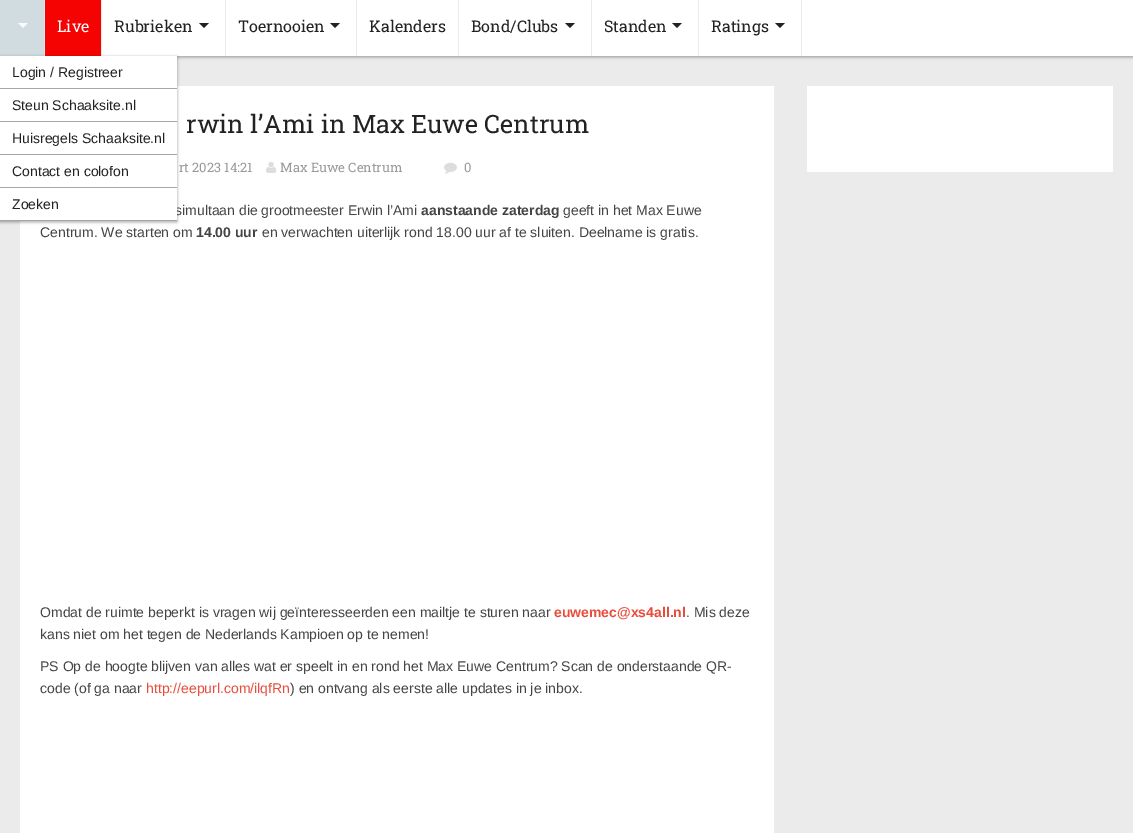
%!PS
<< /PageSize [1133 833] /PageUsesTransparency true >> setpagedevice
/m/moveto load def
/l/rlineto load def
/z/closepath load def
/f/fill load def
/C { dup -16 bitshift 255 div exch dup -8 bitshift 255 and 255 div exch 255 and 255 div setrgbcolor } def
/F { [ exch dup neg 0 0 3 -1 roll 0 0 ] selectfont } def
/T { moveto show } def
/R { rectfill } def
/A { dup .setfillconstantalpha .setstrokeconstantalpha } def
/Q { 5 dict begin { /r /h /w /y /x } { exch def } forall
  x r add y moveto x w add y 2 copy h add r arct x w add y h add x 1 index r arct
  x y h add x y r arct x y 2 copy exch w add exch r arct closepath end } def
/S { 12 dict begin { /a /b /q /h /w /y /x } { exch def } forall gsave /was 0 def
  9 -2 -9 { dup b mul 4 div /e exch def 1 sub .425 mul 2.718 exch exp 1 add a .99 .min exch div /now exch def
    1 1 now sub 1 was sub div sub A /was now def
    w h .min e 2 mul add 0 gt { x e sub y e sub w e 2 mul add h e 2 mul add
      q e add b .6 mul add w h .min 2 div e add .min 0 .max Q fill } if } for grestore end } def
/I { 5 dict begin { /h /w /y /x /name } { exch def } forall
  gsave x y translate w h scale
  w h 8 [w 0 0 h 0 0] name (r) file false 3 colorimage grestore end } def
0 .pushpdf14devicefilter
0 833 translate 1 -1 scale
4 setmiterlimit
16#ECEBEB C
0 0 1133 833 R
16#000000 C
0 -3 1133 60 0 1.5 .35 S
16#FFFFFF C
102 0 1031 56 R
16#F50303 C
45 0 56 56 R
16#EAEAEA C
101 0 1 56 R
/RobotoSlab-Regular 16 F
16#FFFFFF C
(Live) 57 32 T
16#EAEAEA C
225 0 1 56 R
16#222222 C
(Rubrieken) 114 32 T
199 23 m 10 0 l -5 5 l z f
16#EAEAEA C
356 0 1 56 R
16#222222 C
(Toernooien) 238 32 T
330 23 m 10 0 l -5 5 l z f
16#EAEAEA C
458 0 1 56 R
16#222222 C
(Kalenders) 369 32 T
16#EAEAEA C
591 0 1 56 R
16#222222 C
(Bond/Clubs) 471 32 T
565 23 m 10 0 l -5 5 l z f
16#EAEAEA C
698 0 1 56 R
16#222222 C
(Standen) 604 32 T
672 23 m 10 0 l -5 5 l z f
16#EAEAEA C
801 0 1 56 R
16#222222 C
(Ratings) 711 32 T
775 23 m 10 0 l -5 5 l z f
16#D0DCDF C
0 0 44 56 R
16#E7E8E9 C
44 0 1 56 R
16#FAFBFC C
18 23 m 10 0 l -5 5 l z f
16#FFFFFF C
20 86 754 747 R
16#000000 C
0 57 177 165 0 1.5 .35 S
/LiberationSans-Regular 14 F
16#444444 C
(simultaan die grootmeester Erwin l’Ami) 175 215 T
16#FFFFFF C
0 56 177 164 R
16#A6A6A6 C
0 88 177 1 R
16#222222 C
(Login / Registreer) 12 77 T
16#A6A6A6 C
0 121 177 1 R
16#222222 C
(Steun Schaaksite.nl) 12 110 T
16#A6A6A6 C
0 154 177 1 R
16#222222 C
(Huisregels Schaaksite.nl) 12 143 T
16#A6A6A6 C
0 187 177 1 R
16#222222 C
(Contact en colofon) 12 176 T
16#A6A6A6 C
0 220 177 1 R
16#222222 C
(Zoeken) 12 209 T
/RobotoSlab-Regular 25.25 F
(rwin l’Ami in Max Euwe Centrum) 186 133 T
/RobotoSlab-Regular 13 F
16#999999 C
(rt 2023 14:21) 179 172 T
(1.rgb) 266 161 11 12 I
(Max Euwe Centrum) 280 172 T
(2.rgb) 444 162 13 12 I
(0) 464 172 T
/LiberationSans-Bold 14 F
16#444444 C
(aanstaande zaterdag) 421 215 T
/LiberationSans-Regular 14 F
(geeft in het Max Euwe) 563 215 T
(Centrum. We starten om) 40 237 T
/LiberationSans-Bold 14 F
(14.00 uur) 196 237 T
/LiberationSans-Regular 14 F
(en verwachten uiterlijk rond 18.00 uur af te sluiten. Deelname is gratis.) 262 237 T
(Omdat de ruimte beperkt is vragen wij geïnteresseerden een mailtje te sturen naar) 40 617 T
/LiberationSans-Bold 14 F
16#E74C3C C
(euwemec@xs4all.nl) 554 617 T
/LiberationSans-Regular 14 F
16#444444 C
(. Mis deze) 686 617 T
(kans niet om het tegen de Nederlands Kampioen op te nemen!) 40 639 T
(PS Op de hoogte blijven van alles wat er speelt in en rond het Max Euwe Centrum? Scan de onderstaande QR-) 40 671 T
(code \(of ga naar) 40 693 T
16#E74C3C C
(http://eepurl.com/ilqfRn) 146 693 T
16#444444 C
(\) en ontvang als eerste alle updates in je inbox.) 290 693 T
16#FFFFFF C
807 86 306 86 R
.poppdf14devicefilter showpage
